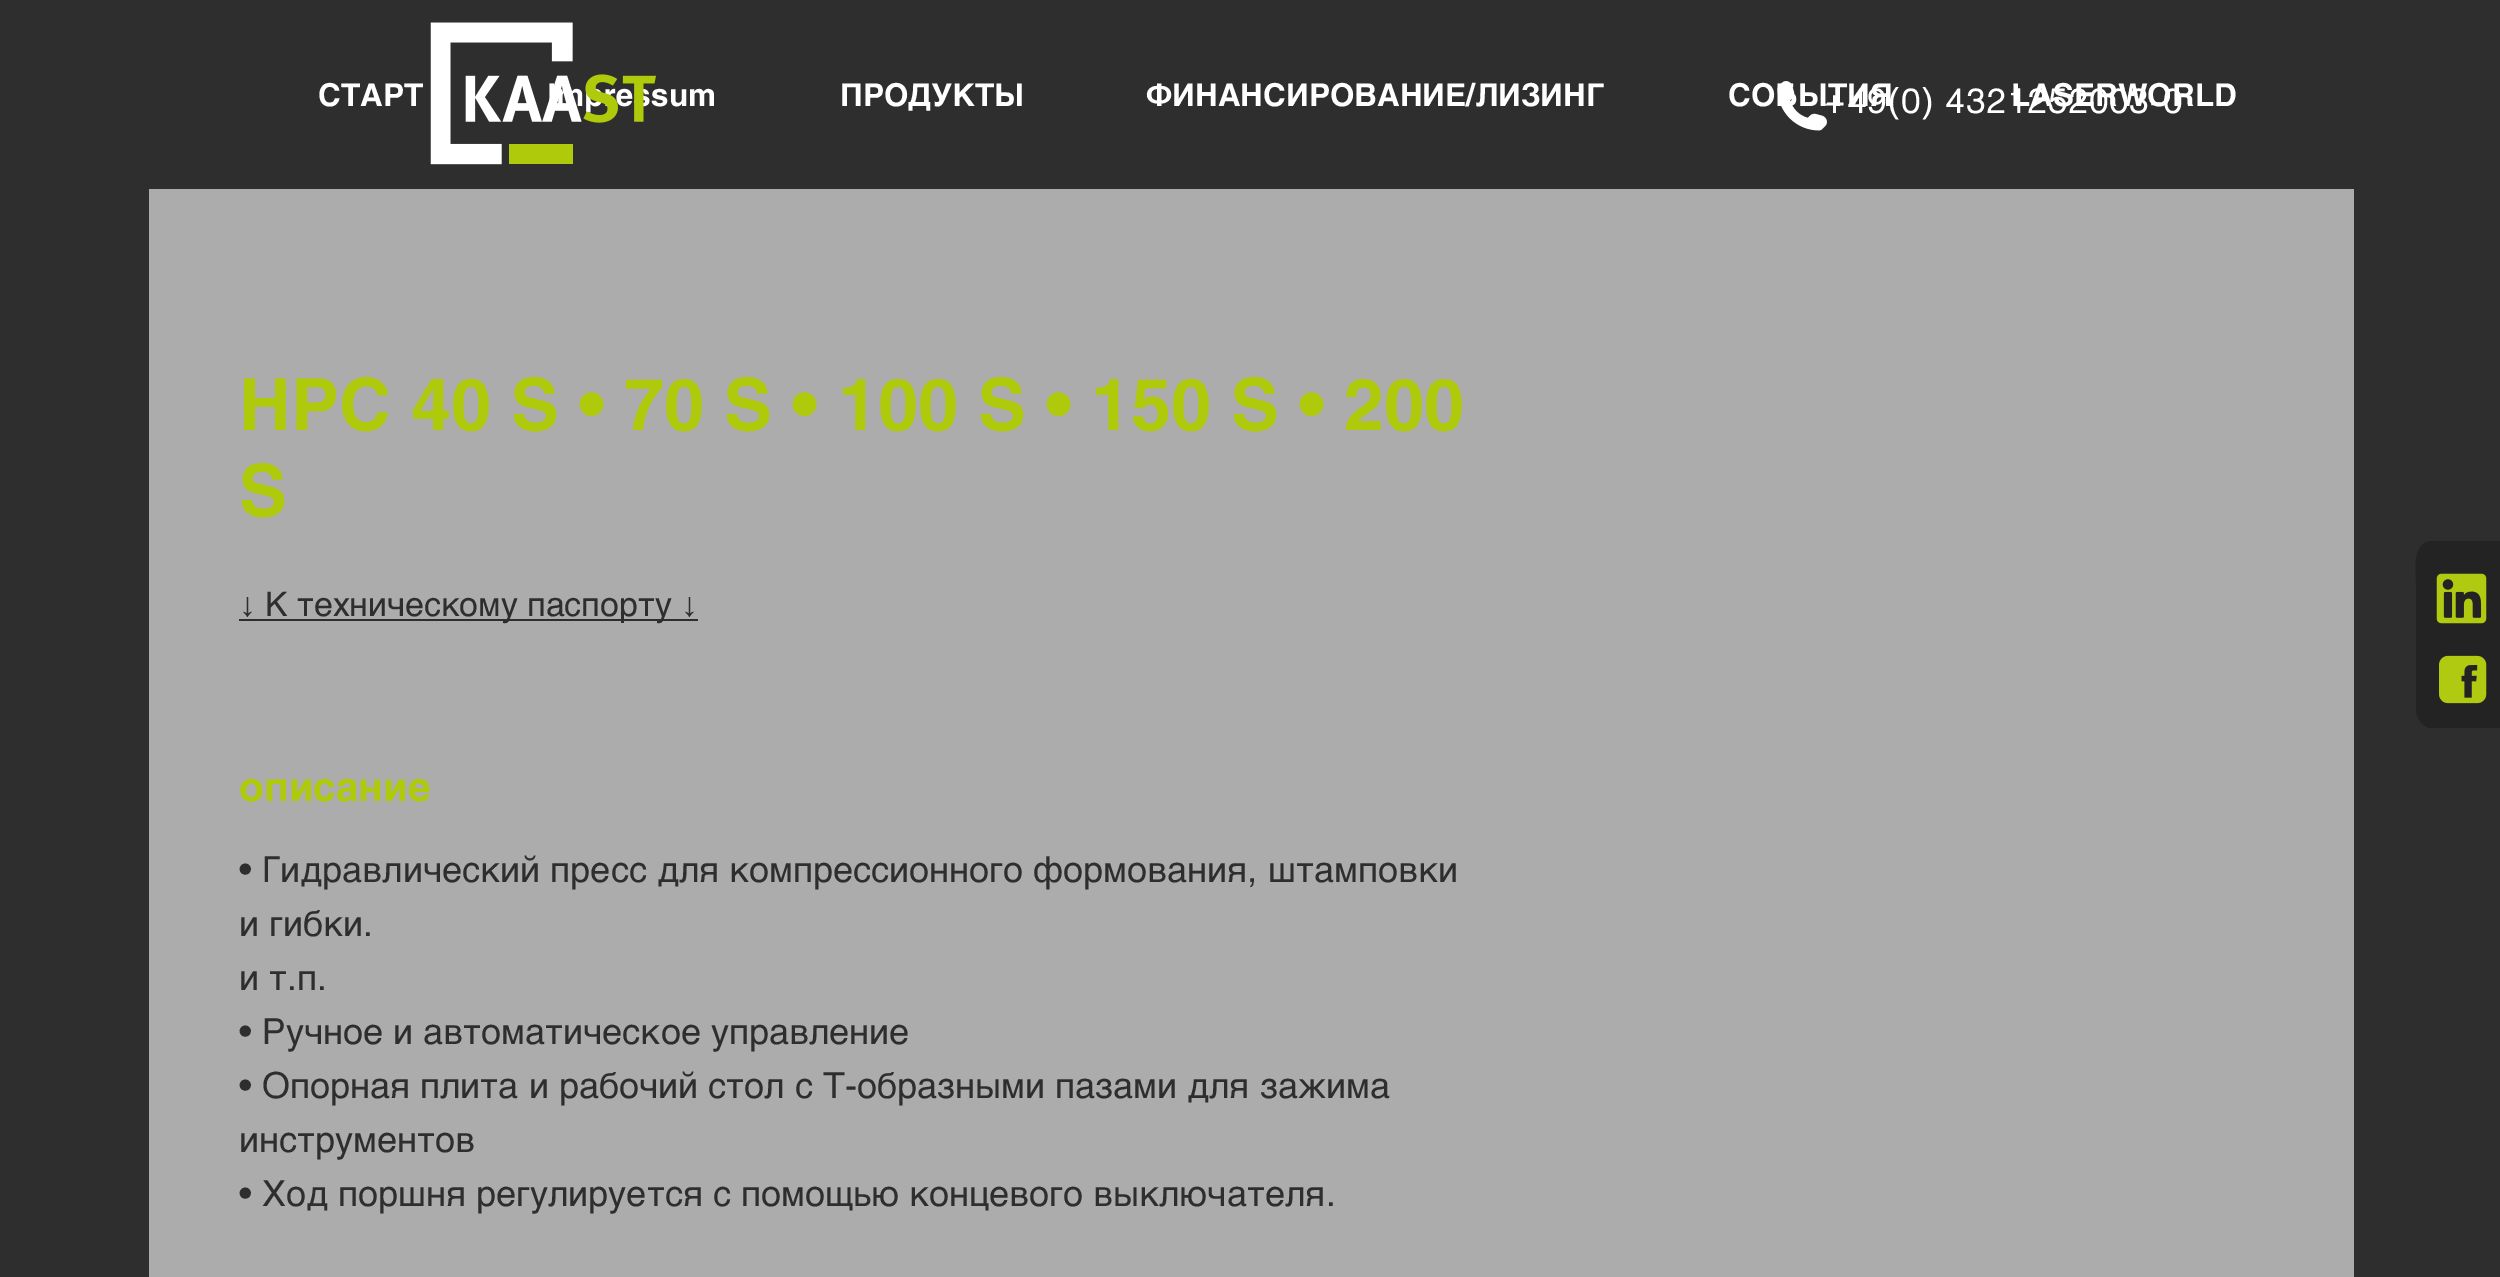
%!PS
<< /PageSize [2500 1277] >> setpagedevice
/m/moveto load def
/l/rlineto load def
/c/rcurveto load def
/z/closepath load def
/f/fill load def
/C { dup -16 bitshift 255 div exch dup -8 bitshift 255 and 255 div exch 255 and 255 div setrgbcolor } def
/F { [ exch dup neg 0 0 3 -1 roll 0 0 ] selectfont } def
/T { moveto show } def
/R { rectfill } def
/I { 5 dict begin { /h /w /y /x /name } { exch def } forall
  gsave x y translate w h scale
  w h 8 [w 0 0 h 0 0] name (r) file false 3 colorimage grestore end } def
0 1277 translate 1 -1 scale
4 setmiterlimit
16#2F2E2E C
0 0 2500 1277 R
/helvetica-Bold 31.5 F
16#FFFFFF C
(essum) 616 106 T
(1.rgb) 430 22 226 143 I
(СТАРТ) 318 106 T
(ПРОДУКТЫ) 840 106 T
(ФИНАНСИРОВАНИЕ/ЛИЗИНГ) 1146 106 T
(СОБЫТИЯ) 1728 106 T
(LASERWORLD) 2011 106 T
/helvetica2-Bold 33.75 F
1823 113 m 1.7 0 (+49\(0\) 4321252003-0) ashow
(2.rgb) 1777 81 50 50 I
16#ACACAC C
149 189 2205 1088 R
/helvetica-Bold 72 F
16#AFCA0B C
(HPC 40 S • 70 S • 100 S • 150 S • 200) 239 430 T
(S) 239 516 T
/LiberationSans-Regular 33.75 F
16#2F2E2E C
(↓) 239 616 T
239 619 459 2 R
/helvetica-Regular 33.75 F
(К техническому паспорту) 265 616 T
/LiberationSans-Regular 33.75 F
(↓) 681 616 T
/helvetica-Bold 40.5 F
16#AFCA0B C
(описание) 239 801 T
/helvetica-Regular 36 F
16#2F2E2E C
(• Гидравлический пресс для компрессионного формования, штамповки) 239 882 T
(и гибки.) 239 936 T
(и т.п.) 239 990 T
(• Ручное и автоматическое управление) 239 1044 T
(• Опорная плита и рабочий стол с Т-образными пазами для зажима) 239 1098 T
(инструментов) 239 1152 T
(• Ход поршня регулируется с помощью концевого выключателя.) 239 1206 T
16#242323 C
2433 541 m 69 0 l 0 187 l -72 0 l -8 -2 -13 -9 -14 -17 c 0 -128 l 0 -12 -5 -42 17 -42 c z f
(3.rgb) 2436 573 51 51 I
(4.rgb) 2439 655 48 49 I
showpage
